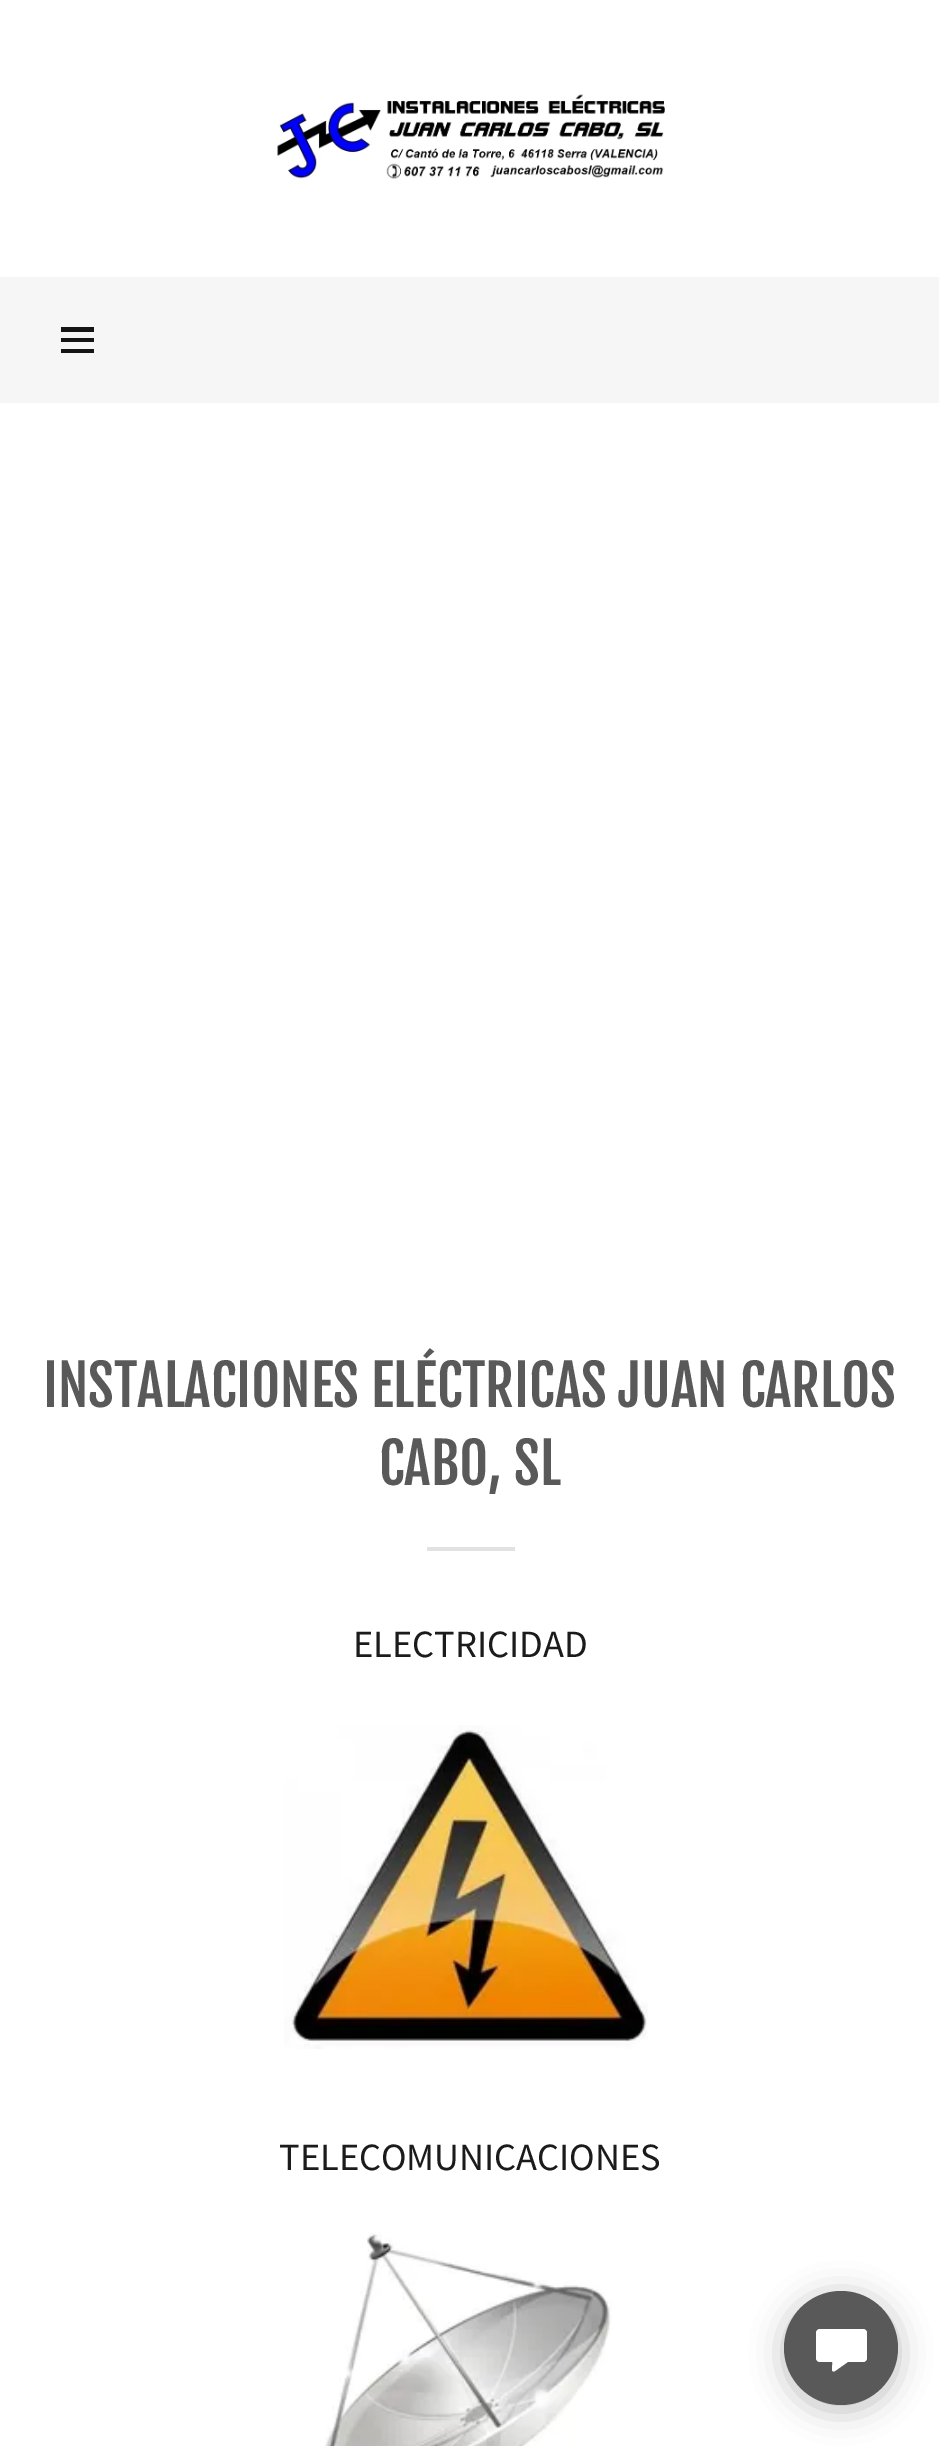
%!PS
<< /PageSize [939 2446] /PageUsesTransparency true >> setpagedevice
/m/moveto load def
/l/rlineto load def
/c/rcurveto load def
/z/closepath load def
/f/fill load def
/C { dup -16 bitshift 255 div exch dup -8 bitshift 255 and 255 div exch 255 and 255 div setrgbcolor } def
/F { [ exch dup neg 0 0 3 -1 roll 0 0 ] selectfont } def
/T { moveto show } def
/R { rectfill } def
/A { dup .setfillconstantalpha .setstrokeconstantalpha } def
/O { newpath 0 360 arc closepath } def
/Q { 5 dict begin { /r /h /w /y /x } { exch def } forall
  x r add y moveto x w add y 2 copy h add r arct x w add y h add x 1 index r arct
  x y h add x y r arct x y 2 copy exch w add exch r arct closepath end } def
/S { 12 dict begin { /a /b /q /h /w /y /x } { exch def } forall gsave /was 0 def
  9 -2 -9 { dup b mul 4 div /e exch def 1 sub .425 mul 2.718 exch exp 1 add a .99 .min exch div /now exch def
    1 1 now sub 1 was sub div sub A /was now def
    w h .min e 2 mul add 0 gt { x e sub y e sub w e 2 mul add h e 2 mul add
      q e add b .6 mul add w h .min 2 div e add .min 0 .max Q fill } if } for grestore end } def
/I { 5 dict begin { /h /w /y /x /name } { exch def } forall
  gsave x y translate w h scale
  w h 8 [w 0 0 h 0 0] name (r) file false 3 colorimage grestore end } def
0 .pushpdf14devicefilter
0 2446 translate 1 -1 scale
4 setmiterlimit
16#FFFFFF C
0 0 939 2446 R
(1.rgb) 277 94 388 85 I
16#F6F6F6 C
0 277 939 126 R
16#151515 C
61 327 33 5 R
61 338 33 4 R
61 349 33 4 R
/FjallaOne-Regular 56 F
16#595959 C
(INSTALACIONES ELÉCTRICAS JUAN CARLOS) 43 1407 T
(CABO, SL) 379 1485 T
16#E2E2E2 C
427 1547 88 4 R
/SourceSansPro-Regular 38.5 F
16#1B1B1B C
(ELECTRICIDAD) 353 1657 T
(2.rgb) 284 1725 364 324 I
(TELECOMUNICACIONES) 279 2170 T
(3.rgb) 325 2232 287 214 I
16#000000 C
784 2296 114 114 57 16 .25 S
16#595959 C
841 2348 57 O f
16#FFFFFF C
816 2329 51 33 4 Q f
832 2369.5 m .5 -8.5 l .5 -1 1 -2 2 -2 c 11.5 0 l 2 0 2.5 2.5 1 3.5 c -12 8.5 l -.5 .5 -1.5 .5 -2 .5 c -.5 -.5 -1 -1 -1 -2 c z f
.poppdf14devicefilter showpage
